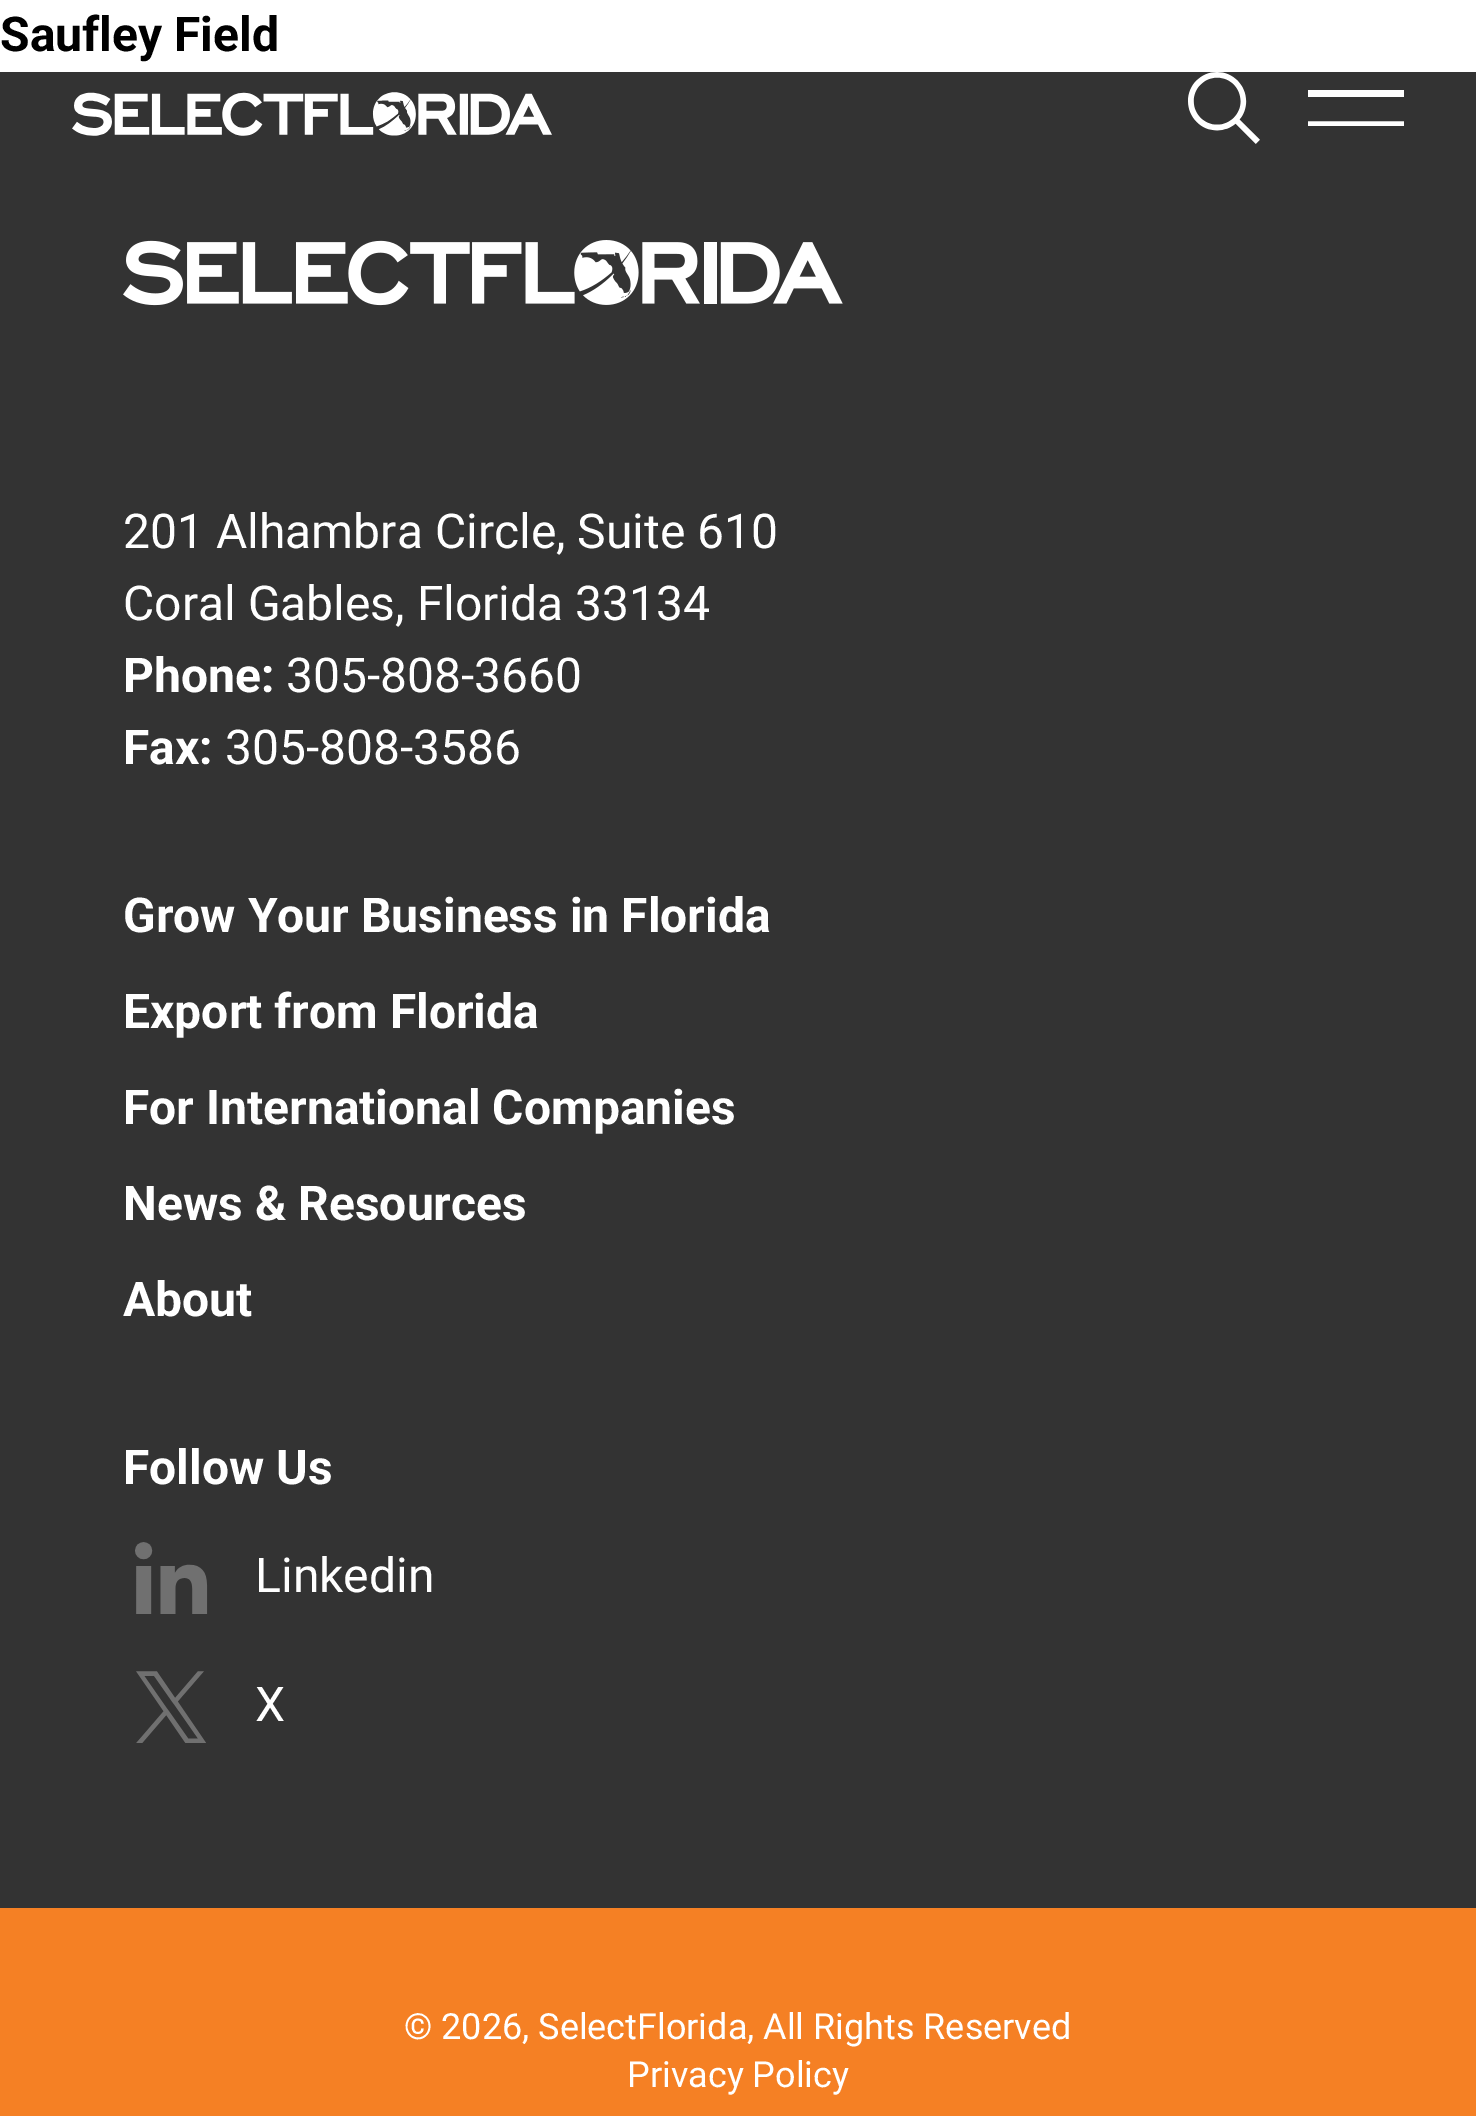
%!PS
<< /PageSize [1476 2116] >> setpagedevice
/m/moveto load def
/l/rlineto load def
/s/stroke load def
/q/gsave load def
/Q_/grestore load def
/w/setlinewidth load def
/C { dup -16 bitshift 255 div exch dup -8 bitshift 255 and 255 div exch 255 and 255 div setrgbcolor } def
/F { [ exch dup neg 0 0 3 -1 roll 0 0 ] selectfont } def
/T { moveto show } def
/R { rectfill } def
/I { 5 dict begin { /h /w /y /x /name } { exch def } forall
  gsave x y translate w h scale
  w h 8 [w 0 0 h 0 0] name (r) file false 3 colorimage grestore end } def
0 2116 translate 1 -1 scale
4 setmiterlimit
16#FFFFFF C
0 0 1476 2116 R
/Roboto-Bold 48 F
16#000000 C
(Saufley Field) 0 51 T
16#333333 C
0 72 1476 1836 R
(1.rgb) 72 92 480 44 I
(2.rgb) 1188 72 72 72 I
16#FFFFFF C
1308 90 96 7 R
q
1308 90 96 36 rectclip
7.2 w
1308 125 m 96 0 l s
Q_
(3.rgb) 123 240 720 66 I
/Roboto-Regular 48 F
(201 Alhambra Circle, Suite 610) 123 548 T
(Coral Gables, Florida 33134) 123 620 T
/Roboto-Bold 48 F
(Phone:) 123 692 T
/Roboto-Regular 48 F
(305-808-3660) 286 692 T
/Roboto-Bold 48 F
(Fax:) 123 764 T
/Roboto-Regular 48 F
(305-808-3586) 225 764 T
/Roboto-Bold 48 F
(Grow Your Business in Florida) 123 932 T
(Export from Florida) 123 1028 T
(For International Companies) 123 1124 T
(News & Resources) 123 1220 T
(About) 123 1316 T
(Follow Us) 123 1484 T
(4.rgb) 135 1542 73 72 I
/Roboto-Regular 48 F
(Linkedin) 255 1592 T
(5.rgb) 136 1671 70 72 I
(X) 255 1721 T
16#F58024 C
0 1908 1476 208 R
/Roboto-Regular 36 F
16#FFFFFF C
(© 2026, SelectFlorida, All Rights Reserved) 404 2039 T
(Privacy Policy) 627 2087 T
showpage
